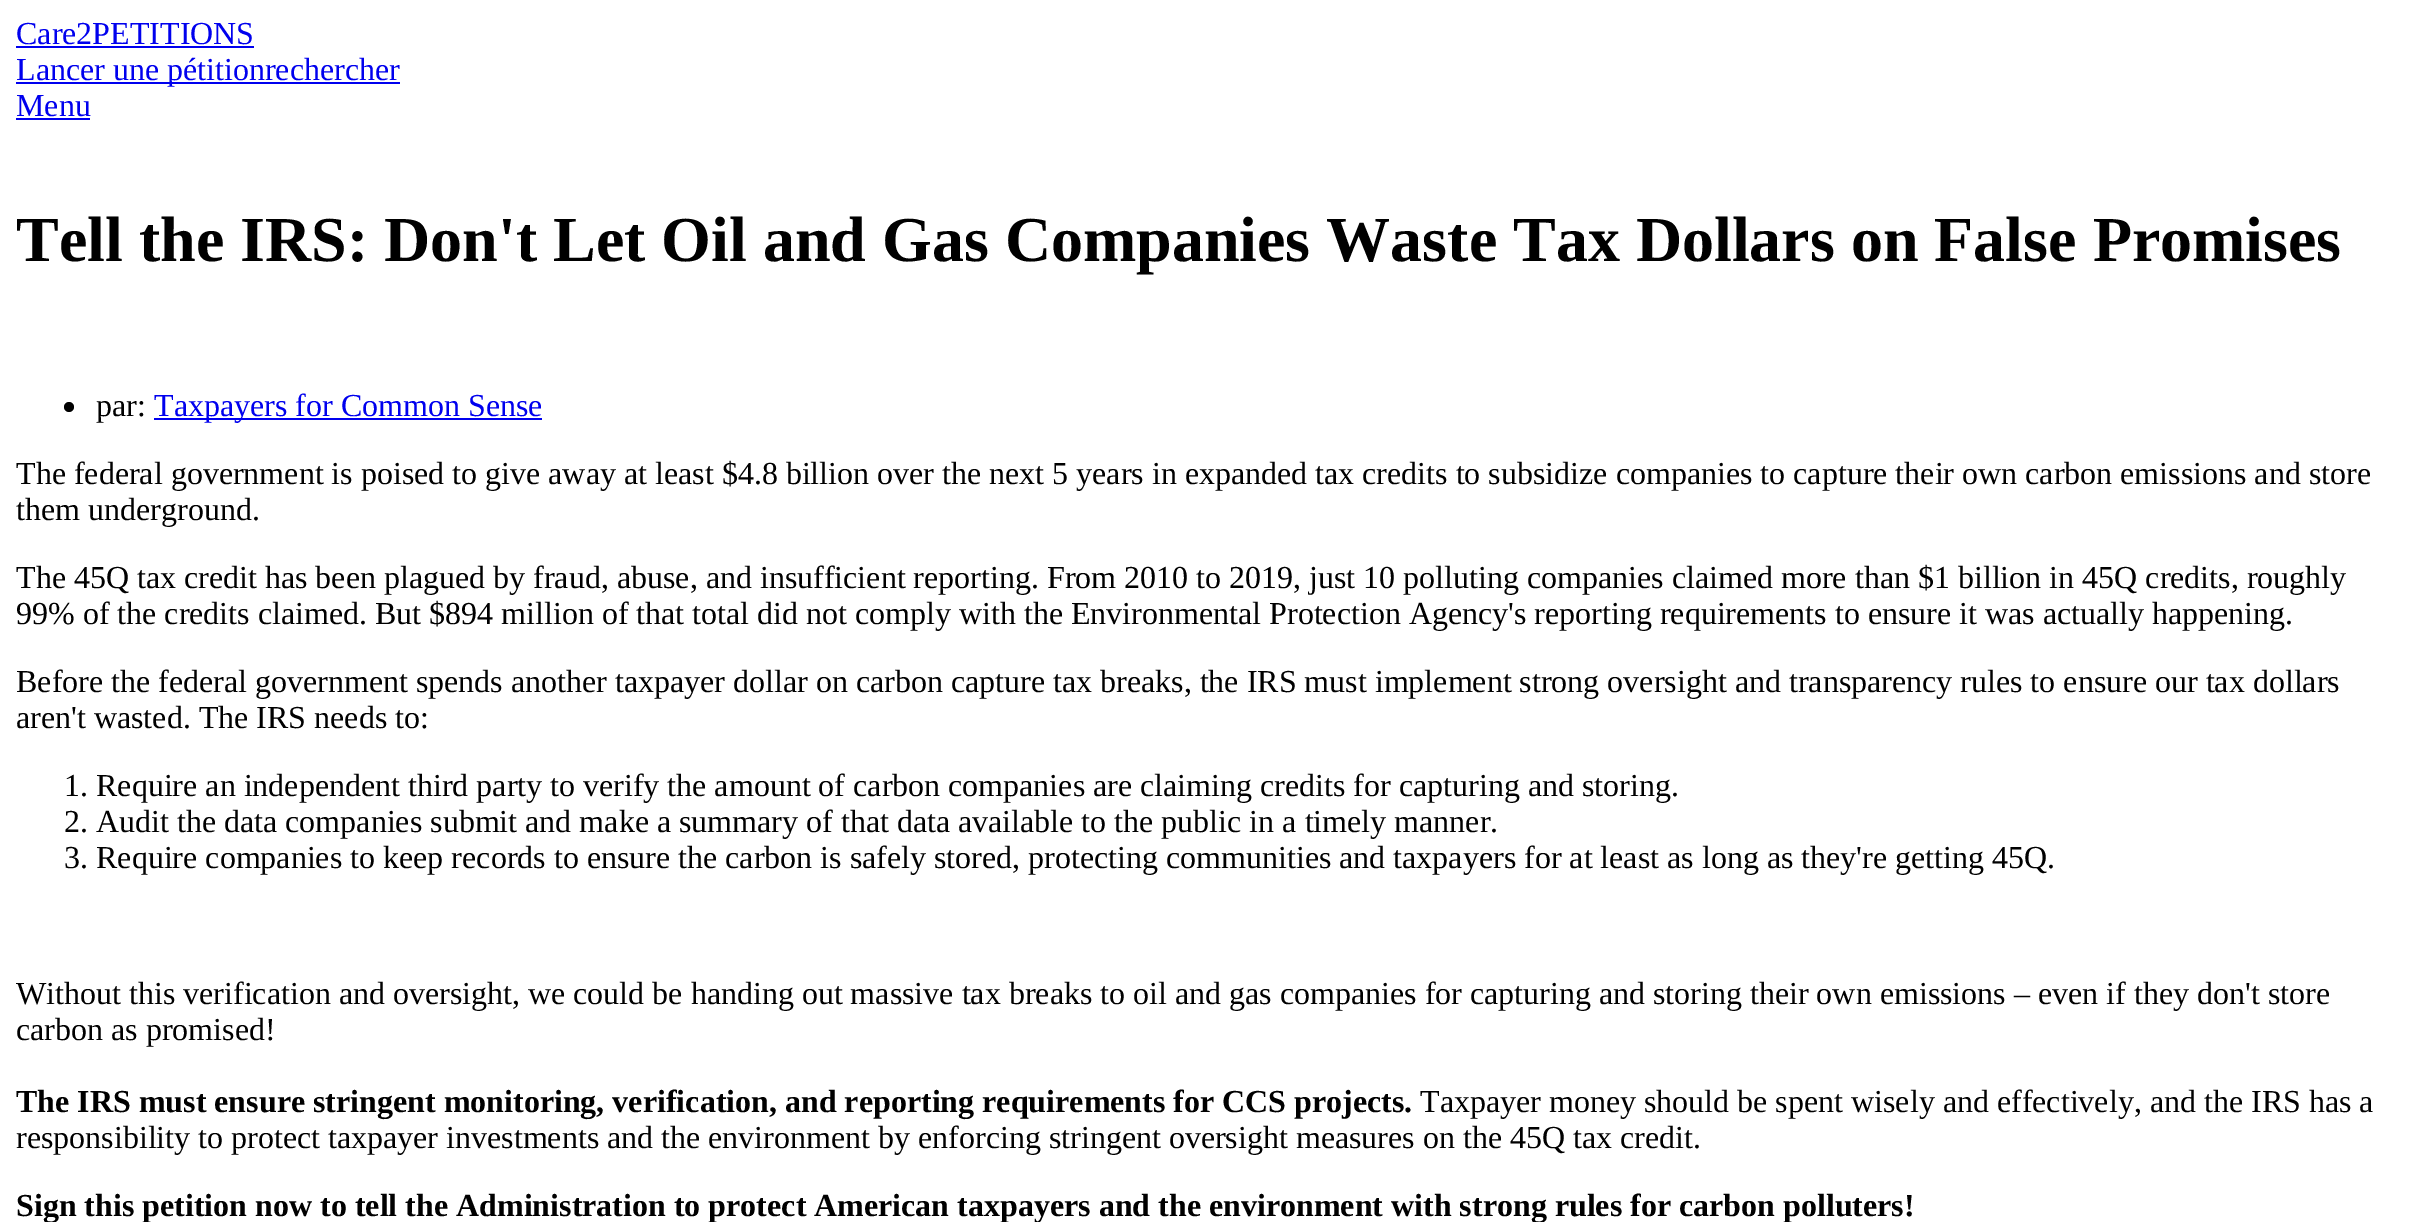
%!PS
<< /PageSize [2420 1222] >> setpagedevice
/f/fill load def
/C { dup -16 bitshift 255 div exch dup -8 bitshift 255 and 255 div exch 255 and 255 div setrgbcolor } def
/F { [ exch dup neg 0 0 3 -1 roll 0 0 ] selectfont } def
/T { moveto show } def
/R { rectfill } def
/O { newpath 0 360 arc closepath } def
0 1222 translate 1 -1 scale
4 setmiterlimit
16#FFFFFF C
0 0 2420 1222 R
/LiberationSerif-Regular 32 F
16#0000EE C
(Care2PETITIONS) 16 44 T
16 46 238 2 R
16 82 248 2 R
(Lancer une pétitionrechercher) 16 80 T
264 82 136 2 R
(Menu) 16 116 T
16 118 74 2 R
/LiberationSerif-Bold 64 F
16#000000 C
(Tell the IRS: Don't Let Oil and Gas Companies Waste Tax Dollars on False Promises) 16 261 T
69 407 5 O f
/LiberationSerif-Regular 32 F
(par:) 96 416 T
16#0000EE C
154 418 388 2 R
(Taxpayers for Common Sense) 154 416 T
16#000000 C
(The federal government is poised to give away at least $4.8 billion over the next 5 years in expanded tax credits to subsidize companies to capture their own carbon emissions and store) 16 484 T
(them underground.) 16 520 T
(The 45Q tax credit has been plagued by fraud, abuse, and insufficient reporting. From 2010 to 2019, just 10 polluting companies claimed more than $1 billion in 45Q credits, roughly) 16 588 T
(99% of the credits claimed. But $894 million of that total did not comply with the Environmental Protection Agency's reporting requirements to ensure it was actually happening.) 16 624 T
(Before the federal government spends another taxpayer dollar on carbon capture tax breaks, the IRS must implement strong oversight and transparency rules to ensure our tax dollars) 16 692 T
(aren't wasted. The IRS needs to:) 16 728 T
(1. Require an independent third party to verify the amount of carbon companies are claiming credits for capturing and storing.) 64 796 T
(2. Audit the data companies submit and make a summary of that data available to the public in a timely manner.) 64 832 T
(3. Require companies to keep records to ensure the carbon is safely stored, protecting communities and taxpayers for at least as long as they're getting 45Q.) 64 868 T
(Without this verification and oversight, we could be handing out massive tax breaks to oil and gas companies for capturing and storing their own emissions – even if they don't store) 16 1004 T
(carbon as promised!) 16 1040 T
/LiberationSerif-Bold 32 F
(The IRS must ensure stringent monitoring, verification, and reporting requirements for CCS projects.) 16 1112 T
/LiberationSerif-Regular 32 F
(Taxpayer money should be spent wisely and effectively, and the IRS has a) 1420 1112 T
(responsibility to protect taxpayer investments and the environment by enforcing stringent oversight measures on the 45Q tax credit.) 16 1148 T
/LiberationSerif-Bold 32 F
(Sign this petition now to tell the Administration to protect American taxpayers and the environment with strong rules for carbon polluters!) 16 1216 T
showpage
